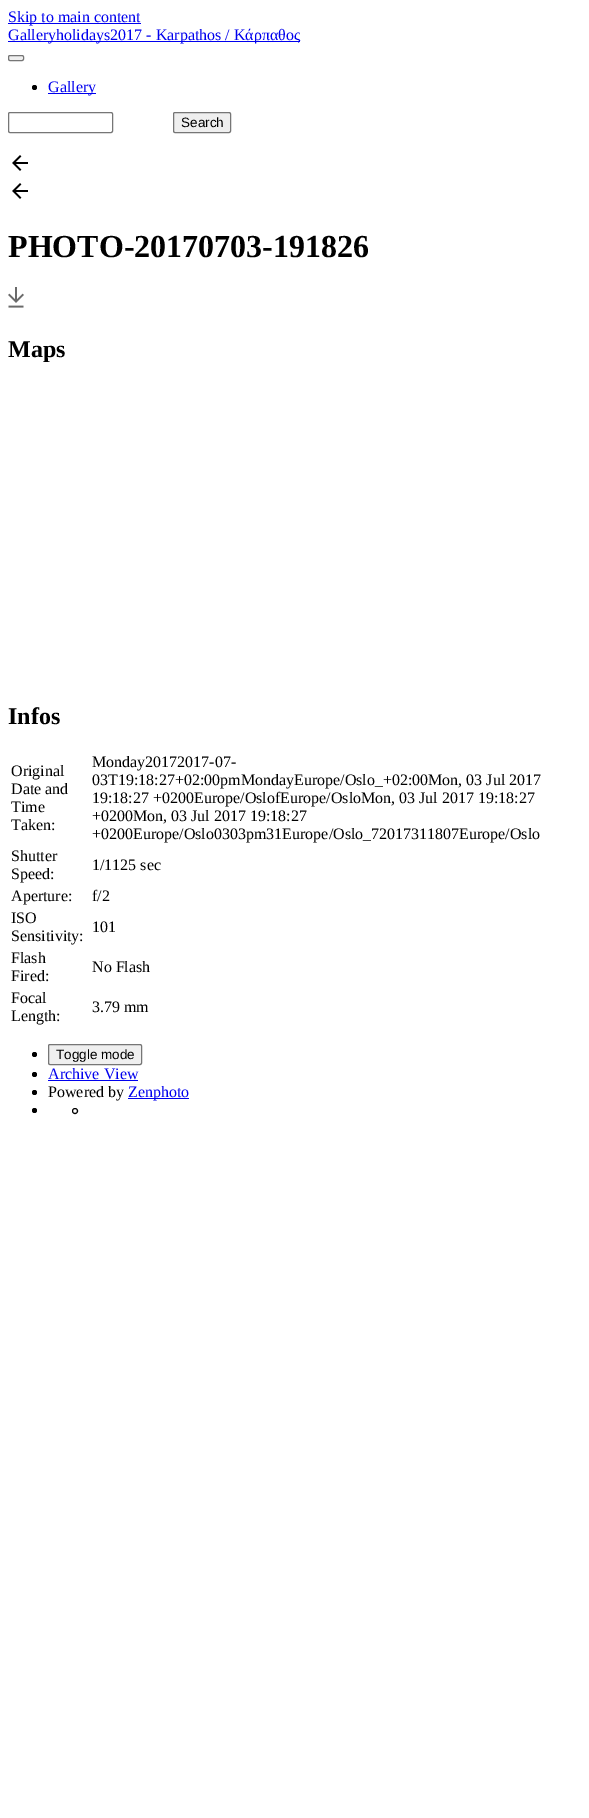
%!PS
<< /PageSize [589 1818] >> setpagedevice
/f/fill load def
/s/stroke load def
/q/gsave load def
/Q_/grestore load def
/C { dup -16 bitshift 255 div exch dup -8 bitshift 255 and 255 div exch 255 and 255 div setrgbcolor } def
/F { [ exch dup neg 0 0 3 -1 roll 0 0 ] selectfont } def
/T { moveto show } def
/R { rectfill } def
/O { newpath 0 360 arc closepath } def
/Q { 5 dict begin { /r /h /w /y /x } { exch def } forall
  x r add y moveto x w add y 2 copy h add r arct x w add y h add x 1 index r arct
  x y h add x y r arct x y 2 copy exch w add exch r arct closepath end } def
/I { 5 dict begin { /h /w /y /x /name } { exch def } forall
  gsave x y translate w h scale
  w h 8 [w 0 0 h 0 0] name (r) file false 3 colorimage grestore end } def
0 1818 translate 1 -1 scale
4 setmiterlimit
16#FFFFFF C
0 0 589 1818 R
16#0000EE C
8 23 133 1 R
/LiberationSerif-Regular 16 F
(Skip to main content) 8 22 T
8 41 292 1 R
(Galleryholidays2017 - Karpathos / Κάρπαθος) 8 40 T
16#EFEFEF C
8.5 55.5 15 5 1.5 Q q f Q_
16#767676 C
s
16#000000 C
34.5 87.5 2.5 O f
16#0000EE C
48 93 48 1 R
(Gallery) 48 92 T
16#767676 C
8.5 112.5 104 20 1.5 Q s
16#EFEFEF C
173.5 112.5 57 20 1.5 Q q f Q_
16#767676 C
s
/LiberationSans-Regular 13.5 F
16#000000 C
(Search) 181 127 T
(1.rgb) 12 155 16 16 I
(1.rgb) 12 183 16 16 I
/LiberationSerif-Bold 32 F
(PHOTO-20170703-191826) 8 257 T
(2.rgb) 8 287 16 21 I
/LiberationSerif-Bold 24 F
(Maps) 8 357 T
(Infos) 8 724 T
/LiberationSerif-Regular 16 F
(Original) 11 776 T
(Date and) 11 794 T
(Time) 11 812 T
(Taken:) 11 830 T
(Monday20172017-07-) 92 767 T
(03T19:18:27+02:00pmMondayEurope/Oslo_+02:00Mon, 03 Jul 2017) 92 785 T
(19:18:27 +0200Europe/OslofEurope/OsloMon, 03 Jul 2017 19:18:27) 92 803 T
(+0200Mon, 03 Jul 2017 19:18:27) 92 821 T
(+0200Europe/Oslo0303pm31Europe/Oslo_72017311807Europe/Oslo) 92 839 T
(Shutter) 11 861 T
(Speed:) 11 879 T
(1/1125 sec) 92 870 T
(Aperture:) 11 901 T
(f/2) 92 901 T
(ISO) 11 923 T
(Sensitivity:) 11 941 T
(101) 92 932 T
(Flash) 11 963 T
(Fired:) 11 981 T
(No Flash) 92 972 T
(Focal) 11 1003 T
(Length:) 11 1021 T
(3.79 mm) 92 1012 T
34.5 1054.5 2.5 O f
16#EFEFEF C
48.5 1044.5 93 20 1.5 Q q f Q_
16#767676 C
s
/LiberationSans-Regular 13.5 F
16#000000 C
(Toggle mode) 56 1059 T
34.5 1074.5 2.5 O f
/LiberationSerif-Regular 16 F
16#0000EE C
(Archive View) 48 1079 T
48 1080 90 1 R
16#000000 C
34.5 1092.5 2.5 O f
(Powered by) 48 1097 T
16#0000EE C
128 1098 61 1 R
(Zenphoto) 128 1097 T
16#000000 C
34.5 1110.5 2.5 O f
75 1111 2.5 O s
showpage
